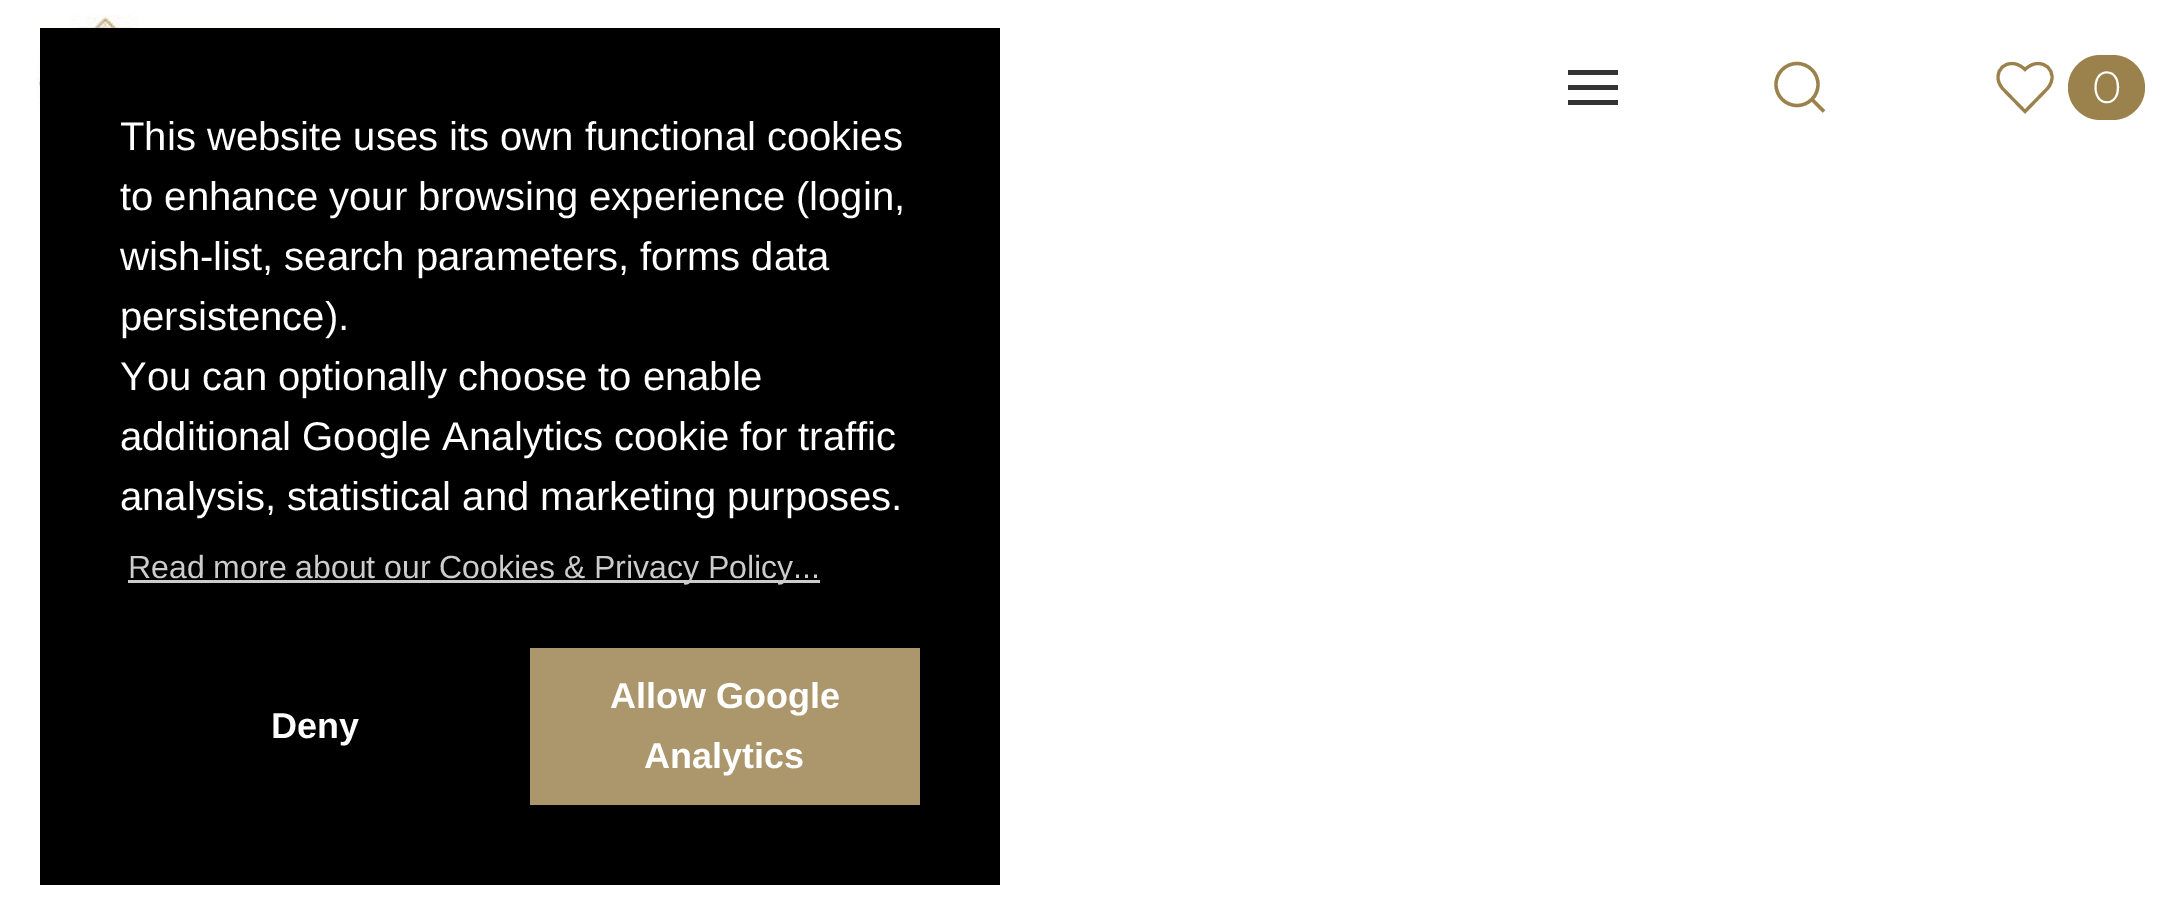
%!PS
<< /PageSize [2183 923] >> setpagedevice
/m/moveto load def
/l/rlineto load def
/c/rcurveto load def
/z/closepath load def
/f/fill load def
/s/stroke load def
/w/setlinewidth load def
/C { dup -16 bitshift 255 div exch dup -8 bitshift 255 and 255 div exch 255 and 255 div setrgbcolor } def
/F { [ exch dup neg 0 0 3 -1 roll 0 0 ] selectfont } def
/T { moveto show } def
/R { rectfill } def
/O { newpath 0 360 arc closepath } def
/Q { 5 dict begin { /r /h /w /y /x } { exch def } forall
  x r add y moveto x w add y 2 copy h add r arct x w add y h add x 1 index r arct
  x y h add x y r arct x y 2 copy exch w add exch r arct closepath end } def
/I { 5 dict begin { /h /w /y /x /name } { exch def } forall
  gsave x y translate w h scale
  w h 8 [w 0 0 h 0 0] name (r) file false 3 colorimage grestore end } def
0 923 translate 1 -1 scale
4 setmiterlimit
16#FFFFFF C
0 0 2183 923 R
(1.rgb) 37 15 499 138 I
16#333333 C
1568 70 50 5 R
1568 85 50 5 R
1568 100 50 5 R
16#9B824C C
3.3 w
1797 84.5 21 O s
1812 99.5 m 12 12 l z s
3.1 w
2025 69.5 m 0 0 -5.5 -6 -13 -6 c -7 0 -14 4.5 -14 14 c 0 6.5 5 11.5 5 11.5 c 22 22.5 l 22 -22.5 l 0 0 5 -5 5 -11.5 c 0 -9.5 -7 -14 -14 -14 c -7.5 0 -13 6 -13 6 c z s
2068 55 77 65 32.5 Q f
/Montserrat-Thin 45 F
16#FFFFFF C
(0) 2092 103 T
16#000000 C
40 28 960 857 R
/LiberationSans-Regular 40 F
16#FFFFFF C
(This website uses its own functional cookies) 120 150 T
(to enhance your browsing experience \(login,) 120 210 T
(wish-list, search parameters, forms data) 120 270 T
(persistence\).) 120 330 T
(You can optionally choose to enable) 120 390 T
(additional Google Analytics cookie for traffic) 120 450 T
(analysis, statistical and marketing purposes.) 120 510 T
16#CCCCCC C
128 580 692 3 R
/LiberationSans-Regular 32 F
(Read more about our Cookies & Privacy Policy...) 128 578 T
/LiberationSans-Bold 36 F
16#FFFFFF C
(Deny) 271 738 T
16#AB976B C
530 648 390 157 R
16#FFFFFF C
(Allow Google) 610 708 T
(Analytics) 644 768 T
showpage
